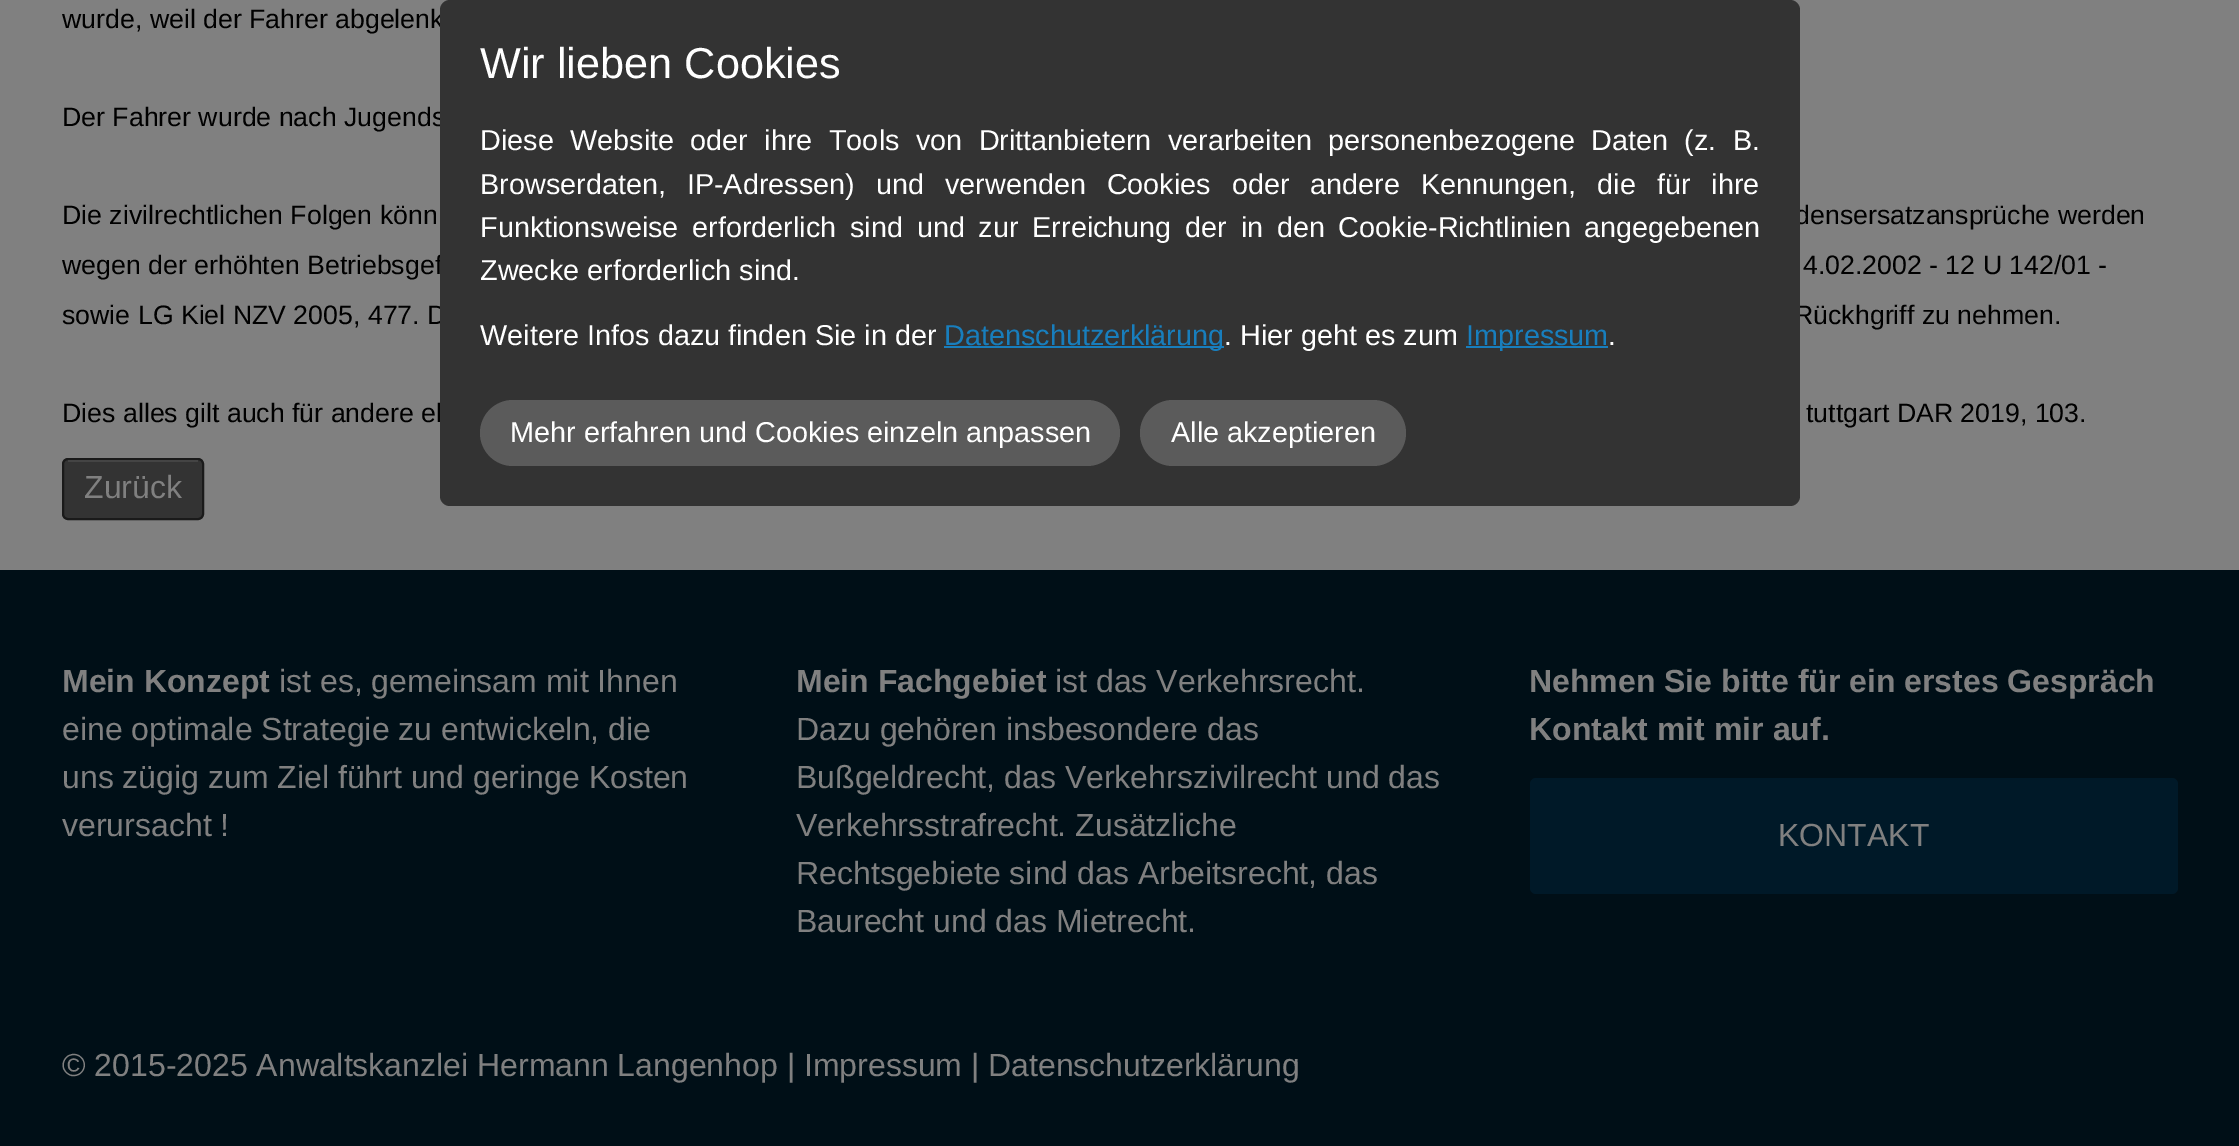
%!PS
<< /PageSize [2239 1146] >> setpagedevice
/m/moveto load def
/f/fill load def
/s/stroke load def
/q/gsave load def
/Q_/grestore load def
/w/setlinewidth load def
/C { dup -16 bitshift 255 div exch dup -8 bitshift 255 and 255 div exch 255 and 255 div setrgbcolor } def
/F { [ exch dup neg 0 0 3 -1 roll 0 0 ] selectfont } def
/T { moveto show } def
/R { rectfill } def
/Q { 5 dict begin { /r /h /w /y /x } { exch def } forall
  x r add y moveto x w add y 2 copy h add r arct x w add y h add x 1 index r arct
  x y h add x y r arct x y 2 copy exch w add exch r arct closepath end } def
0 1146 translate 1 -1 scale
4 setmiterlimit
16#000F17 C
0 0 2239 1146 R
16#808080 C
0 0 2239 570 R
/LiberationSans-Regular 26.7 F
16#000000 C
(wurde, weil der Fahrer abgelenk) 62 28 T
(Der Fahrer wurde nach Jugends) 62 126 T
(Die zivilrechtlichen Folgen könn) 62 224 T
(densersatzansprüche werden) 1795 224 T
(wegen der erhöhten Betriebsgef) 62 274 T
(4.02.2002 - 12 U 142/01 -) 1803 274 T
(sowie LG Kiel NZV 2005, 477. D) 62 324 T
(Rückhgriff zu nehmen.) 1794 324 T
(Dies alles gilt auch für andere el) 62 422 T
(tuttgart DAR 2019, 103.) 1806 422 T
16#333333 C
63 459 140 60 5 Q q f Q_
16#1A1A1A C
2 w
s
16#444444 C
68 460 130 2 R
/LiberationSans-Regular 32 F
16#808080 C
(Zurück) 84 498 T
16#333333 C
440 0 1360 506 10 Q f
/LiberationSans-Regular 43.25 F
16#FFFFFF C
(Wir lieben Cookies) 480 78 T
/LiberationSans-Regular 28.8 F
480 150 m 8.4 0 32 (Diese Website oder ihre Tools von Drittanbietern verarbeiten personenbezogene Daten \(z. B.) widthshow
480 194 m 13 0 32 (Browserdaten, IP-Adressen\) und verwenden Cookies oder andere Kennungen, die für ihre) widthshow
480 237 m 5.75 0 32 (Funktionsweise erforderlich sind und zur Erreichung der in den Cookie-Richtlinien angegebenen) widthshow
(Zwecke erforderlich sind.) 480 280 T
(Weitere Infos dazu finden Sie in der) 480 345 T
16#187EBD C
944 346 280 2 R
(Datenschutzerklärung) 944 345 T
16#FFFFFF C
(. Hier geht es zum) 1224 345 T
16#187EBD C
1466 346 142 2 R
(Impressum) 1466 345 T
16#FFFFFF C
(.) 1608 345 T
16#5B5B5B C
480 400 640 66 33 Q f
16#FFFFFF C
(Mehr erfahren und Cookies einzeln anpassen) 510 442 T
16#5B5B5B C
1140 400 266 66 33 Q f
16#FFFFFF C
(Alle akzeptieren) 1171 442 T
/LiberationSans-Bold 32 F
16#808080 C
(Mein Konzept) 62 692 T
/LiberationSans-Regular 32 F
(ist es, gemeinsam mit Ihnen) 279 692 T
(eine optimale Strategie zu entwickeln, die) 62 740 T
(uns zügig zum Ziel führt und geringe Kosten) 62 788 T
(verursacht !) 62 836 T
/LiberationSans-Bold 32 F
(Mein Fachgebiet) 796 692 T
/LiberationSans-Regular 32 F
(ist das Verkehrsrecht.) 1055 692 T
(Dazu gehören insbesondere das) 796 740 T
(Bußgeldrecht, das Verkehrszivilrecht und das) 796 788 T
(Verkehrsstrafrecht. Zusätzliche) 796 836 T
(Rechtsgebiete sind das Arbeitsrecht, das) 796 884 T
(Baurecht und das Mietrecht.) 796 932 T
/LiberationSans-Bold 32 F
(Nehmen Sie bitte für ein erstes Gespräch) 1529 692 T
(Kontakt mit mir auf.) 1529 740 T
16#001928 C
1530 778 648 116 6 Q f
/LiberationSans-Regular 32 F
16#808080 C
(KONTAKT) 1778 846 T
(© 2015-2025 Anwaltskanzlei Hermann Langenhop | Impressum | Datenschutzerklärung) 62 1076 T
showpage
